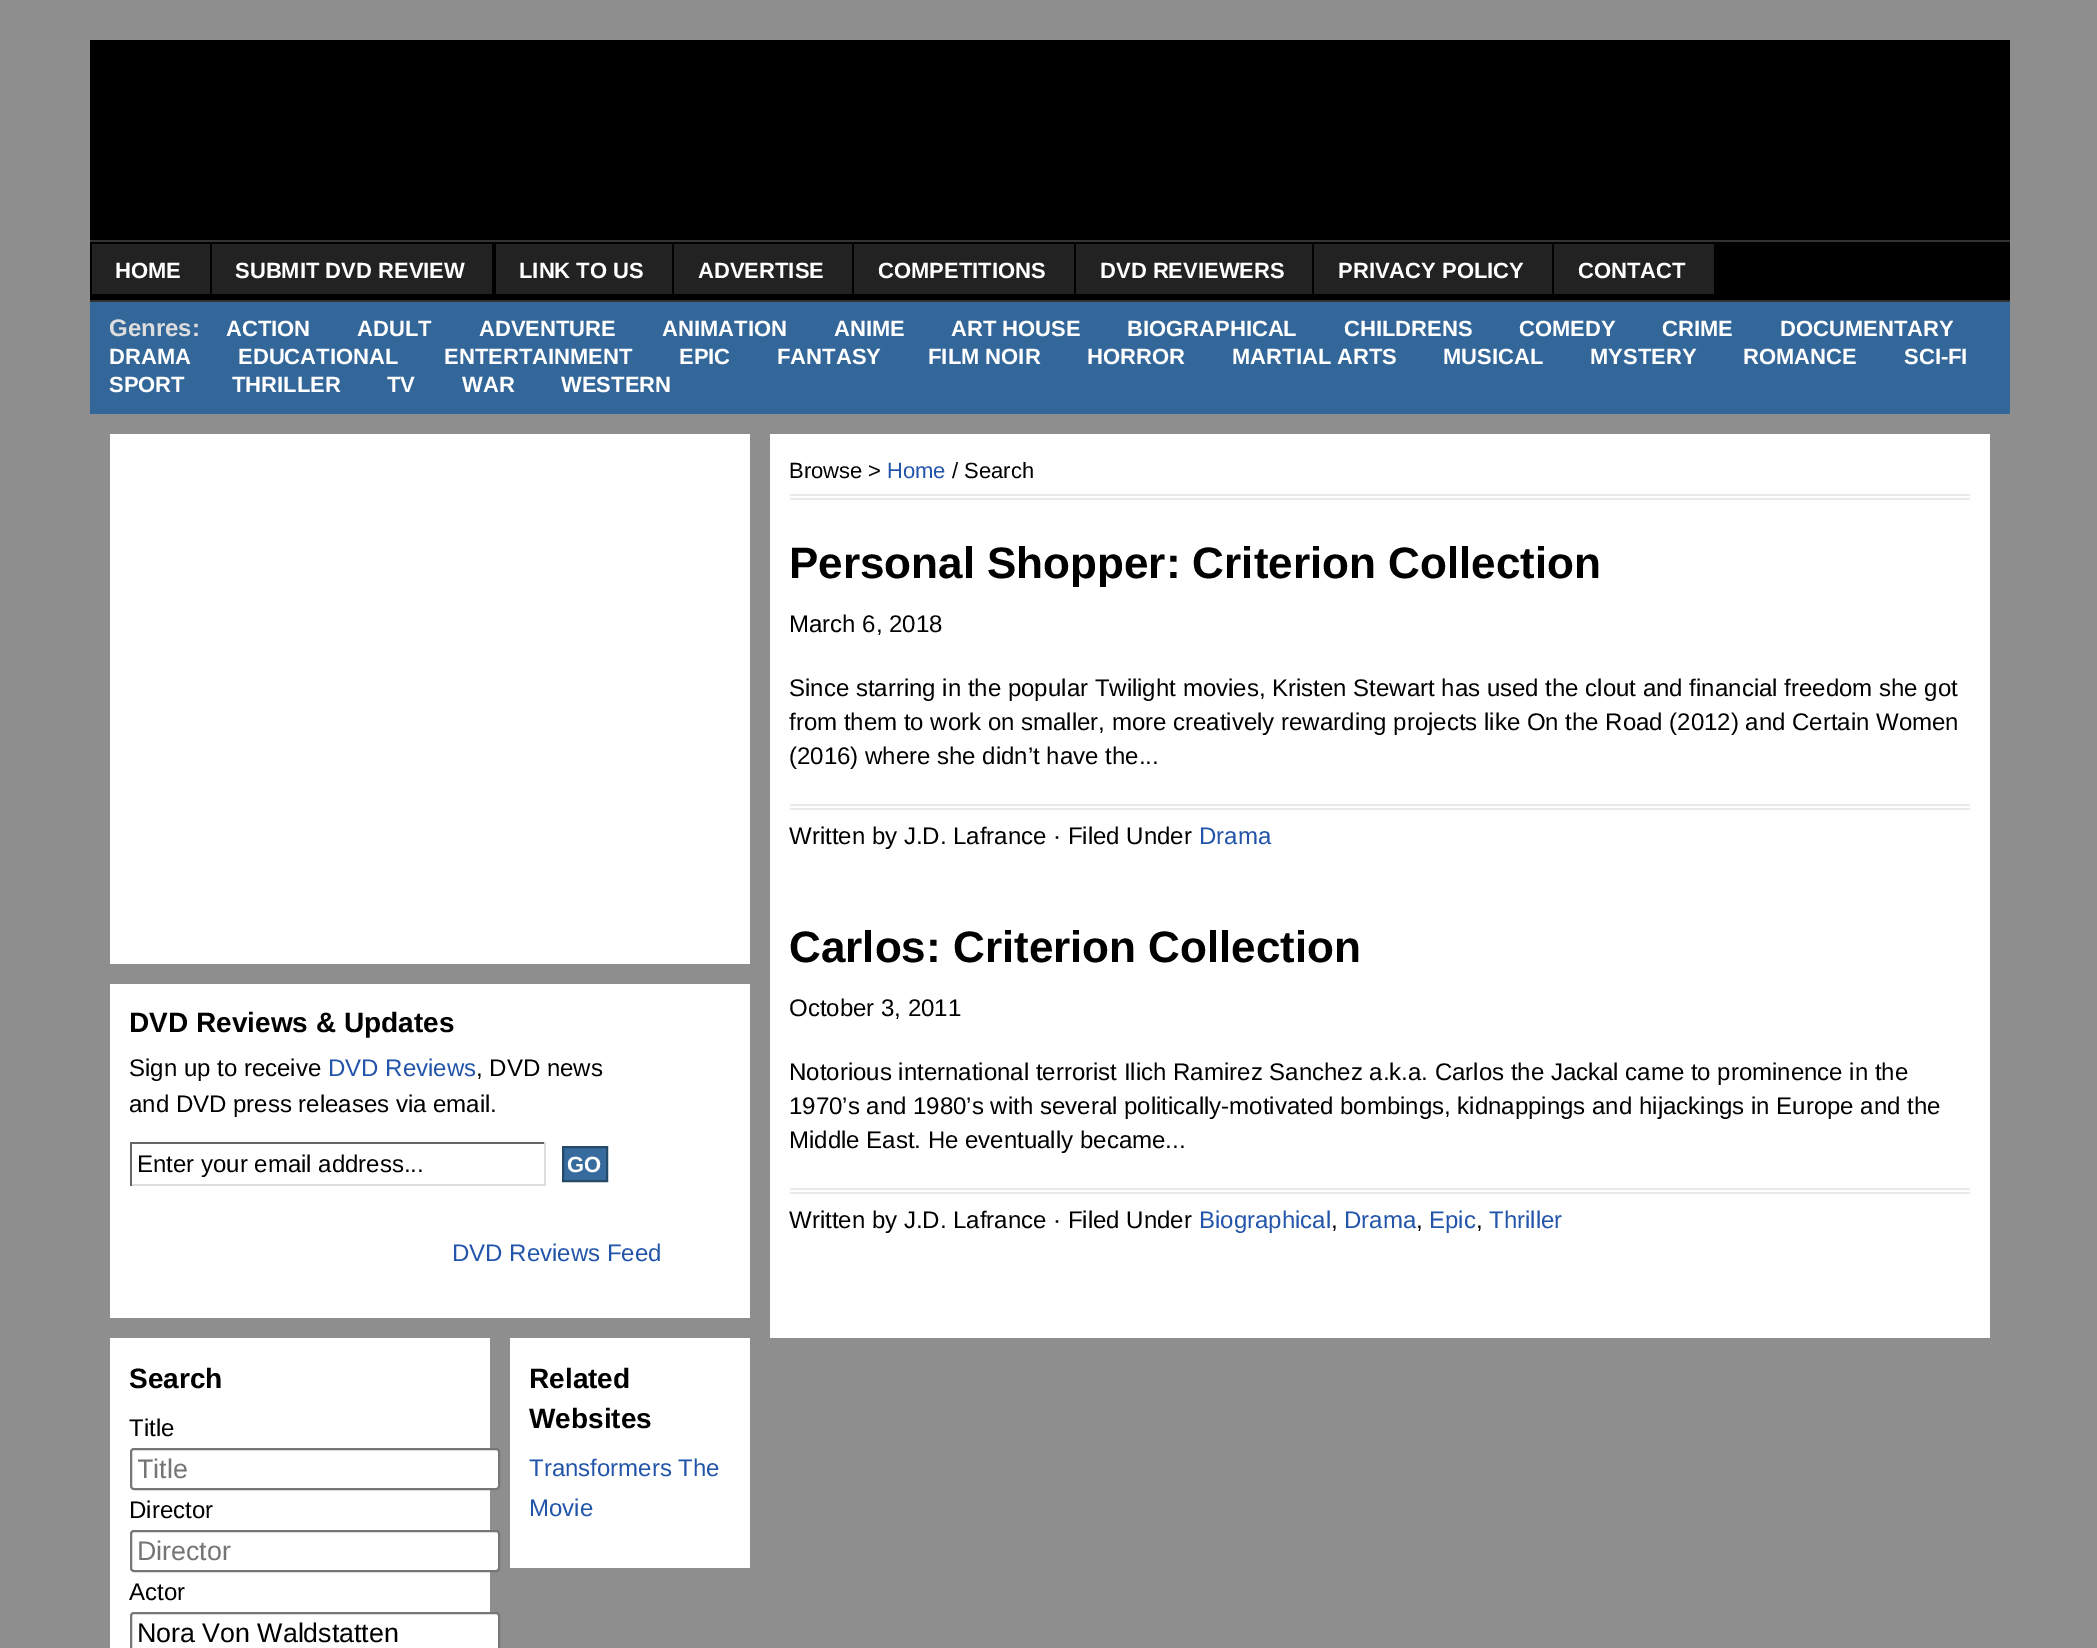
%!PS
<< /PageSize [2097 1648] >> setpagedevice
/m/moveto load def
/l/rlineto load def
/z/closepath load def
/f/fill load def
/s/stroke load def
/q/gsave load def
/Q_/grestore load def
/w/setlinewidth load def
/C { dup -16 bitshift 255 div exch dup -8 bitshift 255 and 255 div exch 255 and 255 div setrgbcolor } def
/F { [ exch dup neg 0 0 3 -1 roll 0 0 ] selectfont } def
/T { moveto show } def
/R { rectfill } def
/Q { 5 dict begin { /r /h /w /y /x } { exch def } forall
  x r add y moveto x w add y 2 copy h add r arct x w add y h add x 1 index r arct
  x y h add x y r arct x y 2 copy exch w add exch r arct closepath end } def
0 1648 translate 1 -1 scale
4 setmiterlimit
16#8F8E8E C
0 0 2097 1648 R
16#000000 C
90 40 1920 200 R
90 242 1920 58 R
16#333333 C
90 240 1920 2 R
90 300 1920 2 R
16#222222 C
92 244 118 50 R
/LiberationSans-Bold 22 F
16#FFFFFF C
(HOME) 115 278 T
16#222222 C
212 244 280 50 R
16#FFFFFF C
(SUBMIT DVD REVIEW) 235 278 T
16#222222 C
496 244 176 50 R
16#FFFFFF C
(LINK TO US) 519 278 T
16#222222 C
674 244 178 50 R
16#FFFFFF C
(ADVERTISE) 698 278 T
16#222222 C
854 244 220 50 R
16#FFFFFF C
(COMPETITIONS) 878 278 T
16#222222 C
1076 244 236 50 R
16#FFFFFF C
(DVD REVIEWERS) 1100 278 T
16#222222 C
1314 244 238 50 R
16#FFFFFF C
(PRIVACY POLICY) 1338 278 T
16#222222 C
1554 244 160 50 R
16#FFFFFF C
(CONTACT) 1578 278 T
16#336699 C
90 302 1920 112 R
/LiberationSans-Bold 24 F
16#DDDDDD C
(Genres:) 109 336 T
/LiberationSans-Bold 22 F
16#FFFFFF C
(ACTION) 226 336 T
(ADULT) 357 336 T
(ADVENTURE) 479 336 T
(ANIMATION) 662 336 T
(ANIME) 834 336 T
(ART HOUSE) 951 336 T
(BIOGRAPHICAL) 1127 336 T
(CHILDRENS) 1344 336 T
(COMEDY) 1519 336 T
(CRIME) 1662 336 T
(DOCUMENTARY) 1780 336 T
(DRAMA) 109 364 T
(EDUCATIONAL) 238 364 T
(ENTERTAINMENT) 444 364 T
(EPIC) 679 364 T
(FANTASY) 777 364 T
(FILM NOIR) 928 364 T
(HORROR) 1087 364 T
(MARTIAL ARTS) 1232 364 T
(MUSICAL) 1443 364 T
(MYSTERY) 1590 364 T
(ROMANCE) 1743 364 T
(SCI-FI) 1904 364 T
(SPORT) 109 392 T
(THRILLER) 232 392 T
(TV) 387 392 T
(WAR) 462 392 T
(WESTERN) 561 392 T
770 434 1220 904 R
16#EAEAEA C
790 494 1180 2 R
790 498 1180 2 R
/LiberationSans-Regular 22 F
16#000000 C
(Browse >) 789 478 T
16#2255AA C
(Home) 887 478 T
16#000000 C
(/ Search) 952 478 T
/LiberationSans-Bold 44 F
(Personal Shopper: Criterion Collection) 789 578 T
/LiberationSans-Regular 24 F
(March 6, 2018) 789 632 T
(Since starring in the popular Twilight movies, Kristen Stewart has used the clout and financial freedom she got) 789 696 T
(from them to work on smaller, more creatively rewarding projects like On the Road \(2012\) and Certain Women) 789 730 T
(\(2016\) where she didn’t have the...) 789 764 T
16#EAEAEA C
790 804 1180 2 R
790 808 1180 2 R
16#000000 C
(Written by J.D. Lafrance · Filed Under) 789 844 T
16#2255AA C
(Drama) 1199 844 T
/LiberationSans-Bold 44 F
16#000000 C
(Carlos: Criterion Collection) 789 962 T
/LiberationSans-Regular 24 F
(October 3, 2011) 789 1016 T
(Notorious international terrorist Ilich Ramirez Sanchez a.k.a. Carlos the Jackal came to prominence in the) 789 1080 T
(1970’s and 1980’s with several politically-motivated bombings, kidnappings and hijackings in Europe and the) 789 1114 T
(Middle East. He eventually became...) 789 1148 T
16#EAEAEA C
790 1188 1180 2 R
790 1192 1180 2 R
16#000000 C
(Written by J.D. Lafrance · Filed Under) 789 1228 T
16#2255AA C
(Biographical) 1199 1228 T
16#000000 C
(,) 1331 1228 T
16#2255AA C
(Drama) 1344 1228 T
16#000000 C
(,) 1416 1228 T
16#2255AA C
(Epic) 1429 1228 T
16#000000 C
(,) 1476 1228 T
16#2255AA C
(Thriller) 1489 1228 T
16#FFFFFF C
110 434 640 530 R
110 984 640 334 R
/LiberationSans-Bold 28 F
16#000000 C
(DVD Reviews & Updates) 129 1032 T
/LiberationSans-Regular 24 F
(Sign up to receive) 129 1076 T
16#2255AA C
(DVD Reviews) 328 1076 T
16#000000 C
(, DVD news) 476 1076 T
(and DVD press releases via email.) 129 1112 T
16#666666 C
130 1142 416 2 R
16#DDDDDD C
544 1142 2 44 R
130 1184 416 2 R
16#666666 C
130 1142 2 44 R
16#000000 C
(Enter your email address...) 137 1172 T
16#376B9D C
563 1147 m 44 0 l 0 34 l -44 0 l z q f Q_
16#234B69 C
2 w
s
/LiberationSans-Bold 22 F
16#FFFFFF C
(GO) 567 1172 T
/LiberationSans-Regular 24 F
16#2255AA C
(DVD Reviews Feed) 452 1261 T
16#FFFFFF C
110 1338 380 310 R
/LiberationSans-Bold 28 F
16#000000 C
(Search) 129 1388 T
/LiberationSans-Regular 24 F
(Title) 129 1436 T
16#FFFFFF C
131 1449 368 40 3 Q q f Q_
16#767676 C
s
q
138 1454 354 30 rectclip
/LiberationSans-Regular 26.75 F
16#757575 C
(Title) 137 1478 T
Q_
16#000000 C
(Director) 129 1518 T
16#FFFFFF C
131 1531 368 40 3 Q q f Q_
16#767676 C
s
/LiberationSans-Regular 26.75 F
16#757575 C
(Director) 137 1560 T
/LiberationSans-Regular 24 F
16#000000 C
(Actor) 129 1600 T
16#FFFFFF C
131 1613 368 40 3 Q q f Q_
16#767676 C
s
/LiberationSans-Regular 26.75 F
16#000000 C
(Nora Von Waldstatten) 137 1642 T
16#FFFFFF C
510 1338 240 230 R
/LiberationSans-Bold 28 F
16#000000 C
(Related) 529 1388 T
(Websites) 529 1428 T
/LiberationSans-Regular 24 F
16#2255AA C
(Transformers The) 529 1476 T
(Movie) 529 1516 T
showpage
